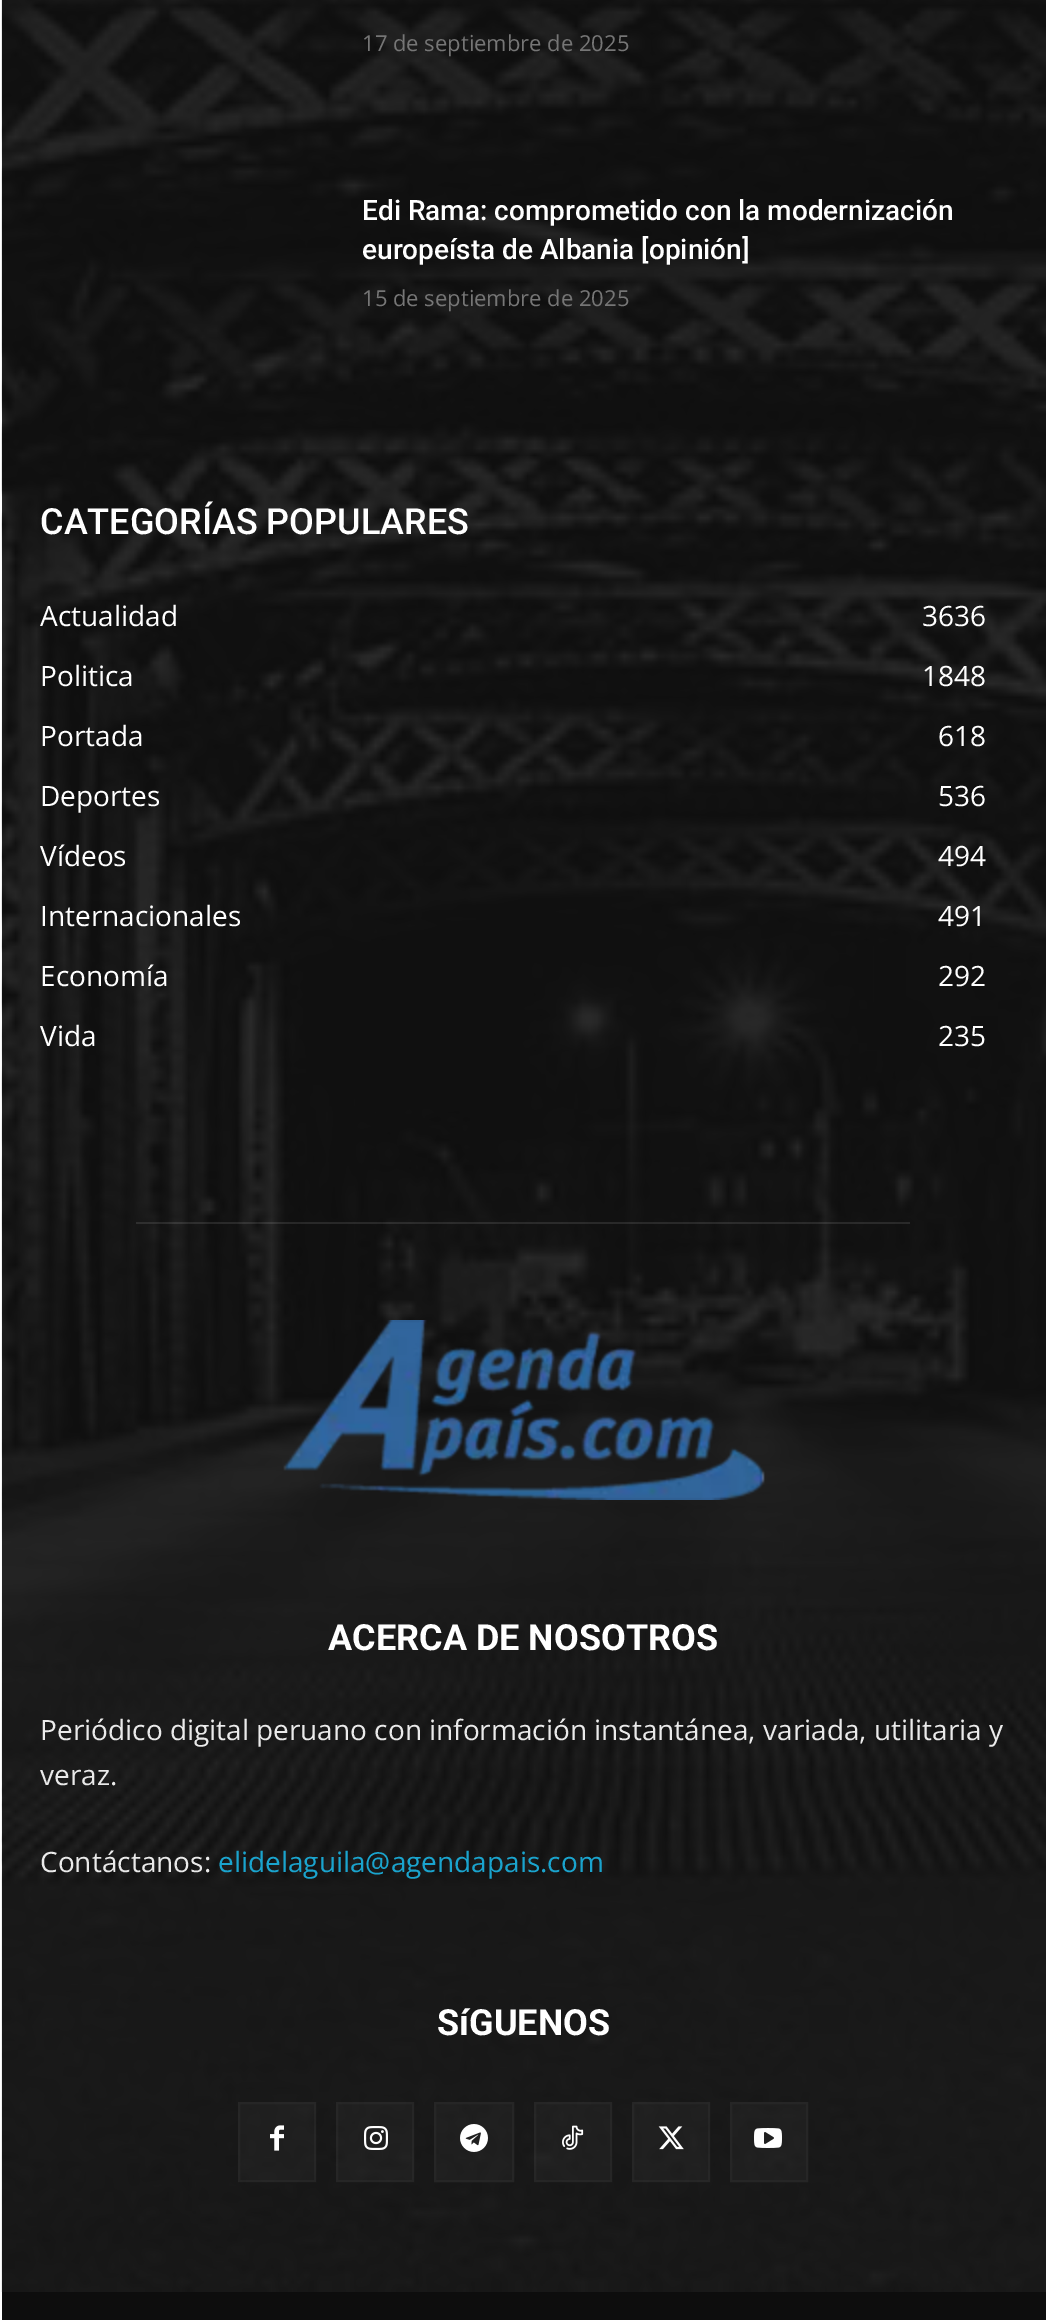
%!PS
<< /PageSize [1046 2320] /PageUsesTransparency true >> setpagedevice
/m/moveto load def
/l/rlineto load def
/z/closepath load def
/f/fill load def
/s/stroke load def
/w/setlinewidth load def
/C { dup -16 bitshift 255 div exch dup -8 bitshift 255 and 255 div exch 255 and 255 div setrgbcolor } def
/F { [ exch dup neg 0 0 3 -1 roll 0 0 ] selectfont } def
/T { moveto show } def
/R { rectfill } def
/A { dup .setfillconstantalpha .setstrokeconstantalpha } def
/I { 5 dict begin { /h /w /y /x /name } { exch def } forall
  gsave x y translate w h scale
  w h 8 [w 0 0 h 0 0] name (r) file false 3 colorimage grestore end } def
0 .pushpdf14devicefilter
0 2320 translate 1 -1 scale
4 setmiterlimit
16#FFFFFF C
0 0 1046 2320 R
16#111111 C
2 0 1044 2292 R
(1.rgb) 1 0 1045 2292 I
/OpenSans-Regular 22 F
16#767676 C
(17 de septiembre de 2025) 362 51 T
/Roboto-Medium 28 F
16#FFFFFF C
(Edi Rama: comprometido con la modernización) 362 220 T
(europeísta de Albania [opinión]) 362 259 T
/OpenSans-Regular 22 F
16#767676 C
(15 de septiembre de 2025) 362 306 T
/Roboto-Medium 36 F
16#FFFFFF C
(CATEGORÍAS POPULARES) 40 534 T
/OpenSans-Regular 28 F
(Actualidad) 40 626 T
(3636) 922 626 T
(Politica) 40 686 T
(1848) 922 686 T
(Portada) 40 746 T
(618) 938 746 T
(Deportes) 40 806 T
(536) 938 806 T
(Vídeos) 40 866 T
(494) 938 866 T
(Internacionales) 40 926 T
(491) 938 926 T
(Economía) 40 986 T
(292) 938 986 T
(Vida) 40 1046 T
(235) 938 1046 T
0.1 A
136 1222 774 2 R
1 A
(2.rgb) 283 1320 482 180 I
/Roboto-Bold 36 F
(ACERCA DE NOSOTROS) 328 1650 T
/OpenSans-Regular 28 F
16#EAEAEA C
(Periódico digital peruano con información instantánea, variada, utilitaria y) 40 1740 T
(veraz.) 40 1785 T
(Contáctanos:) 40 1872 T
16#1AA4CE C
(elidelaguila@agendapais.com) 218 1872 T
/Roboto-Bold 36 F
16#FFFFFF C
(SíGUENOS) 437 2035 T
0.03 A
238 2102 78 80 R
2 w
239 2103 76 78 rectstroke
1 A
(3.rgb) 270 2125 14 26 I
0.03 A
336 2102 78 80 R
337 2103 76 78 rectstroke
1 A
(4.rgb) 364 2126 24 24 I
0.03 A
435 2103 m 78 0 l 0 78 l -78 0 l z f
1 A
16#262626 C
435 2103 m 78 0 l 0 78 l -78 0 l z s
(5.rgb) 460 2124 28 28 I
0.03 A
16#FFFFFF C
534 2102 78 80 R
535 2103 76 78 rectstroke
1 A
(6.rgb) 562 2125 22 25 I
0.03 A
632 2102 78 80 R
633 2103 76 78 rectstroke
1 A
(7.rgb) 658 2126 26 24 I
0.03 A
731 2103 m 76 0 l 0 78 l -76 0 l z f
1 A
16#262626 C
731 2103 m 76 0 l 0 78 l -76 0 l z s
(8.rgb) 754 2128 28 20 I
16#0D0D0D C
2 2292 1044 28 R
.poppdf14devicefilter showpage
